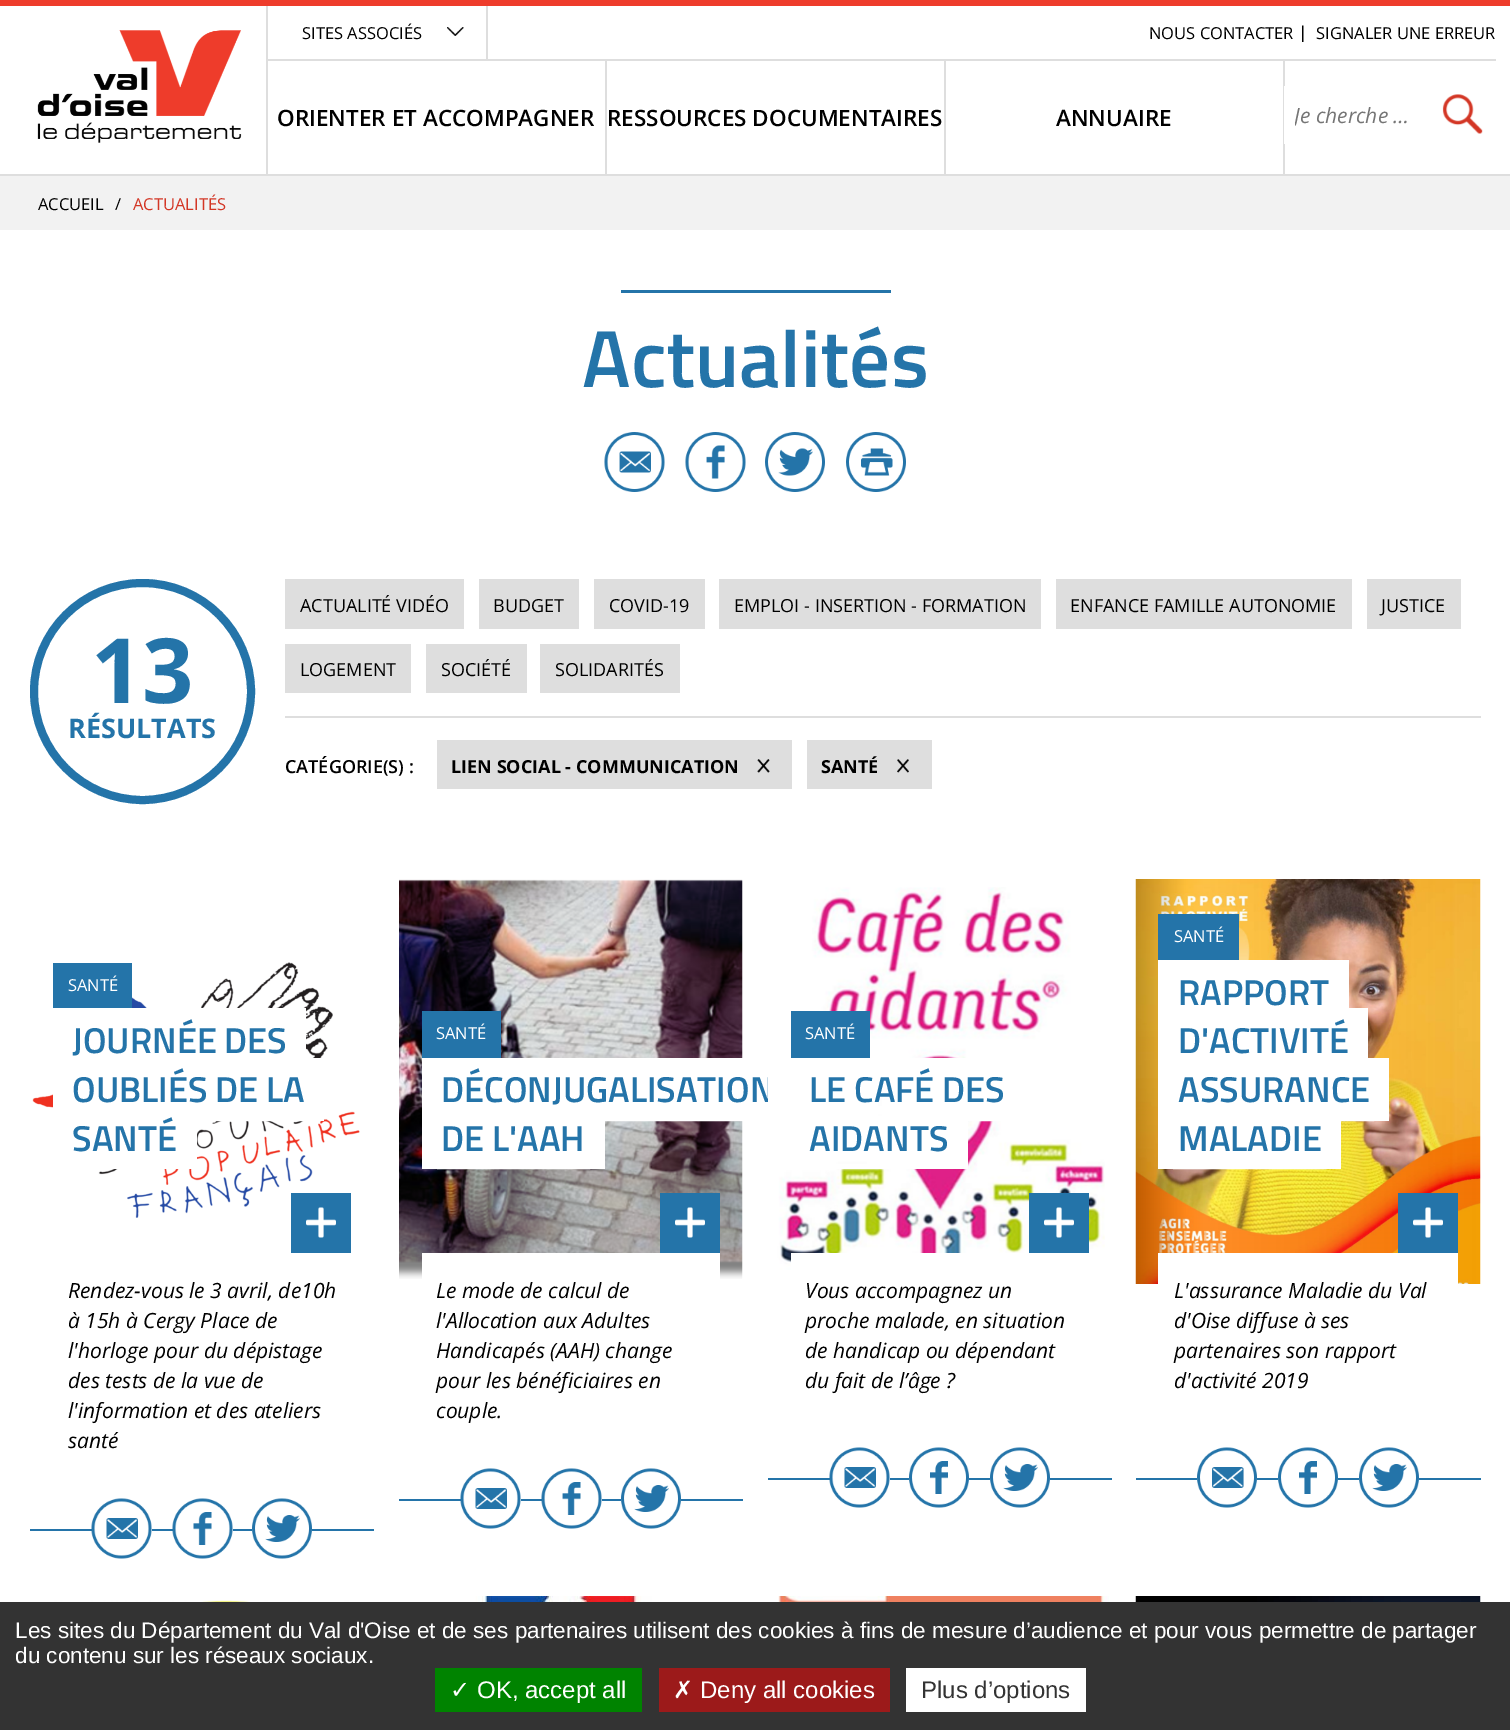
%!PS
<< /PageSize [1510 1730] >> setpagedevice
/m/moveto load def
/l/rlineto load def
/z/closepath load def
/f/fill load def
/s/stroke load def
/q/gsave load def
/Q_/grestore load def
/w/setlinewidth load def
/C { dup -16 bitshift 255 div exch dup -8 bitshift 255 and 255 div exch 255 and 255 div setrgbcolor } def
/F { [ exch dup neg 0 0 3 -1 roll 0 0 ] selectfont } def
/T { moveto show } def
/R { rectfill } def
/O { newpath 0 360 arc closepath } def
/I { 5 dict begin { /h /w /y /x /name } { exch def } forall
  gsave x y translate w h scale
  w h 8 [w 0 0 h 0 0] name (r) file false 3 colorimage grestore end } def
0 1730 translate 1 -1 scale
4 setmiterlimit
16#FFFFFF C
0 0 1510 1730 R
16#EE3C2B C
0 0 1510 6 R
16#DEDEDE C
0 174 1510 2 R
266 6 2 168 R
(1.rgb) 37 30 205 113 I
605 60 2 114 R
944 60 2 114 R
1283 60 2 114 R
267 59 1229 2 R
486 6 2 53 R
/OpenSans-Regular 16.5 F
16#000000 C
(SITES ASSOCIÉS) 302 39 T
(2.rgb) 447 27 17 9 I
(3.rgb) 1302 25 2 17 I
(NOUS CONTACTER) 1149 39 T
(SIGNALER UNE ERREUR) 1316 39 T
/OpenSans-SemiBold 22.5 F
(ORIENTER ET ACCOMPAGNER) 277 126 T
(RESSOURCES DOCUMENTAIRES) 607 126 T
(ANNUAIRE) 1056 126 T
16#FFFFFF C
1284 86 1 58 R
q
1295 101 117 28 rectclip
/OpenSans-Italic 21 F
16#757575 C
(Je cherche …) 1294 123 T
Q_
(4.rgb) 1442 94 41 40 I
16#F2F2F2 C
0 176 1510 54 R
/OpenSans-Regular 16.5 F
16#000000 C
(ACCUEIL) 38 210 T
(/) 115 210 T
16#D33625 C
(ACTUALITÉS) 133 210 T
16#2474A9 C
621 290 270 3 R
/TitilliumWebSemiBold-SemiBold 81 F
(Actualités) 582 387 T
(5.rgb) 604 432 61 60 I
(6.rgb) 685 432 61 60 I
(7.rgb) 765 432 60 60 I
(8.rgb) 846 432 60 60 I
8 w
142.5 691.5 108.5 O s
/OpenSans-Bold 90 F
(13) 91 703 T
/OpenSans-Bold 27 F
(RÉSULTATS) 68 738 T
16#DEDEDE C
285 579 179 50 R
/OpenSans-Regular 18 F
16#000000 C
(ACTUALITÉ VIDÉO) 300 612 T
16#DEDEDE C
479 579 100 50 R
16#000000 C
(BUDGET) 493 612 T
16#DEDEDE C
594 579 111 50 R
16#000000 C
(COVID-19) 609 612 T
16#DEDEDE C
719 579 322 50 R
16#000000 C
(EMPLOI - INSERTION - FORMATION) 734 612 T
16#DEDEDE C
1056 579 296 50 R
16#000000 C
(ENFANCE FAMILLE AUTONOMIE) 1070 612 T
16#DEDEDE C
1367 579 94 50 R
16#000000 C
(JUSTICE) 1381 612 T
16#DEDEDE C
285 644 126 49 R
16#000000 C
(LOGEMENT) 300 676 T
16#DEDEDE C
426 644 101 49 R
16#000000 C
(SOCIÉTÉ) 441 676 T
16#DEDEDE C
540 644 140 49 R
16#000000 C
(SOLIDARITÉS) 555 676 T
16#DEDEDE C
285 716 1196 2 R
/OpenSans-SemiBold 18 F
16#000000 C
(CATÉGORIE\(S\) :) 285 773 T
16#DEDEDE C
437 740 355 49 R
/OpenSans-Bold 18 F
16#000000 C
(LIEN SOCIAL - COMMUNICATION) 451 773 T
(9.rgb) 757 759 13 14 I
16#DEDEDE C
807 740 125 49 R
16#000000 C
(SANTÉ) 821 773 T
(10.rgb) 897 759 12 14 I
(11.rgb) 32 962 328 256 I
16#2474A9 C
53 963 79 45 R
/OpenSans-Regular 16.5 F
16#FFFFFF C
(SANTÉ) 68 991 T
83 1008 m 0 4 l 203 0 l 0 54 l -203 0 l 0 5 l 223 0 l 0 -63 l z f
5 w
70.5 1010.5 218 58 rectstroke
89 1013 197 45 R
/TitilliumWebSemiBold-SemiBold 36 F
16#2474A9 C
(JOURNÉE DES) 72 1053 T
16#FFFFFF C
83 1058 m 0 4 l 221 0 l 0 54 l -221 0 l 0 5 l 241 0 l 0 -63 l z f
53 1058 m 0 63 l 241 0 l 0 -5 l -222 0 l 0 -54 l 222 0 l 0 -4 l z f
70.5 1060.5 236 58 rectstroke
73 1063 231 53 R
16#2474A9 C
(OUBLIÉS DE LA) 72 1102 T
16#FFFFFF C
83 1106 m 0 4 l 94 0 l 0 54 l -94 0 l 0 5 l 114 0 l 0 -63 l z f
98 1121 79 43 R
16#2474A9 C
(SANTÉ) 72 1151 T
291 1193 60 60 R
(12.rgb) 306 1207 30 31 I
/OpenSans-Italic 21 F
16#000000 C
(Rendez-vous le 3 avril, de10h) 68 1298 T
(à 15h à Cergy Place de) 68 1328 T
(l'horloge pour du dépistage) 68 1358 T
(des tests de la vue de) 68 1388 T
(l'information et des ateliers) 68 1418 T
(santé) 68 1448 T
16#2474A9 C
30 1529 344 2 R
16#FFFFFF C
92 1529 60 2 R
(13.rgb) 91 1498 61 61 I
173 1529 60 2 R
(14.rgb) 172 1498 61 61 I
252 1529 60 2 R
(15.rgb) 252 1498 60 61 I
(16.rgb) 399 879 344 400 I
16#2474A9 C
422 1011 79 47 R
/OpenSans-Regular 16.5 F
16#FFFFFF C
(SANTÉ) 436 1039 T
422 1058 m 0 63 l 342 0 l 0 -5 l -323 0 l 0 -54 l 323 0 l 0 -4 l z f
439.5 1060.5 337 58 rectstroke
442 1063 301 53 R
/TitilliumWebSemiBold-SemiBold 36 F
16#2474A9 C
(DÉCONJUGALISATION) 441 1102 T
16#FFFFFF C
452 1106 m 0 4 l 133 0 l 0 54 l -133 0 l 0 5 l 153 0 l 0 -63 l z f
422 1106 m 0 63 l 153 0 l 0 -5 l -134 0 l 0 -54 l 134 0 l 0 -4 l z f
439.5 1108.5 148 58 rectstroke
442 1121 143 43 R
16#2474A9 C
(DE L'AAH) 441 1151 T
16#FFFFFF C
422 1253 298 26 R
16#2474A9 C
660 1193 60 60 R
(17.rgb) 675 1207 30 31 I
/OpenSans-Italic 21 F
16#000000 C
(Le mode de calcul de) 436 1298 T
(l'Allocation aux Adultes) 436 1328 T
(Handicapés \(AAH\) change) 436 1358 T
(pour les bénéficiaires en) 436 1388 T
(couple.) 436 1418 T
16#2474A9 C
399 1499 344 2 R
16#FFFFFF C
461 1499 60 2 R
(13.rgb) 460 1468 61 61 I
542 1499 60 2 R
(18.rgb) 541 1468 61 61 I
621 1499 60 2 R
(15.rgb) 621 1468 60 61 I
(19.rgb) 768 887 337 383 I
16#2474A9 C
791 1011 79 47 R
/OpenSans-Regular 16.5 F
16#FFFFFF C
(SANTÉ) 805 1039 T
821 1058 m 0 4 l 184 0 l 0 54 l -184 0 l 0 5 l 204 0 l 0 -63 l z f
808.5 1060.5 199 58 rectstroke
882 1063 119 53 R
/TitilliumWebSemiBold-SemiBold 36 F
16#2474A9 C
(LE CAFÉ DES) 809 1102 T
16#FFFFFF C
821 1106 m 0 4 l 127 0 l 0 54 l -127 0 l 0 5 l 147 0 l 0 -63 l z f
878 1121 70 43 R
16#2474A9 C
(AIDANTS) 809 1151 T
16#FFFFFF C
791 1253 233 17 R
16#2474A9 C
1029 1193 60 60 R
(17.rgb) 1044 1207 30 31 I
/OpenSans-Italic 21 F
16#000000 C
(Vous accompagnez un) 805 1298 T
(proche malade, en situation) 805 1328 T
(de handicap ou dépendant) 805 1358 T
(du fait de l’âge ?) 805 1388 T
16#2474A9 C
768 1478 344 2 R
16#FFFFFF C
830 1478 60 2 R
(13.rgb) 829 1447 61 61 I
909 1478 60 2 R
(20.rgb) 909 1447 60 61 I
990 1478 60 2 R
(15.rgb) 990 1447 60 61 I
(21.rgb) 1135 879 346 405 I
16#2474A9 C
1158 914 81 46 R
/OpenSans-Regular 16.5 F
16#FFFFFF C
(SANTÉ) 1174 942 T
1188 960 m 0 4 l 141 0 l 0 54 l -141 0 l 0 5 l 161 0 l 0 -63 l z f
1158 960 m 0 63 l 161 0 l 0 -5 l -141 0 l 0 -54 l 141 0 l 0 -4 l z f
1175.5 962.5 156 58 rectstroke
1178 965 151 48 R
/TitilliumWebSemiBold-SemiBold 36 F
16#2474A9 C
(RAPPORT) 1178 1005 T
16#FFFFFF C
1188 1008 m 0 4 l 160 0 l 0 54 l -160 0 l 0 5 l 180 0 l 0 -63 l z f
1158 1008 m 0 63 l 180 0 l 0 -5 l -160 0 l 0 -54 l 160 0 l 0 -4 l z f
1178 1013 170 45 R
16#2474A9 C
(D'ACTIVITÉ) 1178 1053 T
16#FFFFFF C
1188 1058 m 0 4 l 182 0 l 0 54 l -182 0 l 0 5 l 201 0 l 0 -63 l z f
1158 1058 m 0 63 l 201 0 l 0 -5 l -181 0 l 0 -54 l 181 0 l 0 -4 l z f
1175.5 1060.5 196 58 rectstroke
1178 1063 191 53 R
16#2474A9 C
(ASSURANCE) 1178 1102 T
16#FFFFFF C
1188 1106 m 0 4 l 134 0 l 0 54 l -134 0 l 0 5 l 153 0 l 0 -63 l z f
1158 1106 m 0 63 l 153 0 l 0 -5 l -133 0 l 0 -54 l 133 0 l 0 -4 l z f
1175.5 1108.5 148 58 rectstroke
1178 1121 143 43 R
16#2474A9 C
(MALADIE) 1178 1151 T
16#FFFFFF C
1158 1253 300 31 R
16#2474A9 C
1398 1193 60 60 R
(17.rgb) 1413 1207 30 31 I
/OpenSans-Italic 21 F
16#000000 C
(L'assurance Maladie du Val) 1174 1298 T
(d'Oise diffuse à ses) 1174 1328 T
(partenaires son rapport) 1174 1358 T
(d'activité 2019) 1174 1388 T
16#2474A9 C
1136 1478 345 2 R
16#FFFFFF C
1197 1478 60 2 R
(22.rgb) 1197 1447 60 61 I
1278 1478 60 2 R
(20.rgb) 1278 1447 60 61 I
1359 1478 60 2 R
(23.rgb) 1359 1447 60 61 I
(24.rgb) 30 1600 344 2 I
(25.rgb) 453 1596 209 6 I
(26.rgb) 778 1596 331 6 I
(27.rgb) 1135 1596 346 6 I
16#333333 C
0 1602 1510 128 R
/LiberationSans-Regular 22.5 F
16#FFFFFF C
(Les sites du Département du Val d'Oise et de ses partenaires utilisent des cookies à fins de mesure d’audience et pour vous permettre de partager) 15 1638 T
(du contenu sur les réseaux sociaux.) 15 1663 T
16#008300 C
435 1668 207 44 R
/DejaVuSans-Regular 24 F
16#FFFFFF C
(✓) 450 1698 T
/LiberationSans-Regular 24 F
(OK, accept all) 477 1698 T
16#9C1A1A C
659 1668 231 44 R
/DejaVuSans-Regular 24 F
16#FFFFFF C
(✗) 673 1698 T
/LiberationSans-Regular 24 F
(Deny all cookies) 700 1698 T
906 1668 180 44 R
16#333333 C
(Plus d’options) 921 1698 T
showpage
